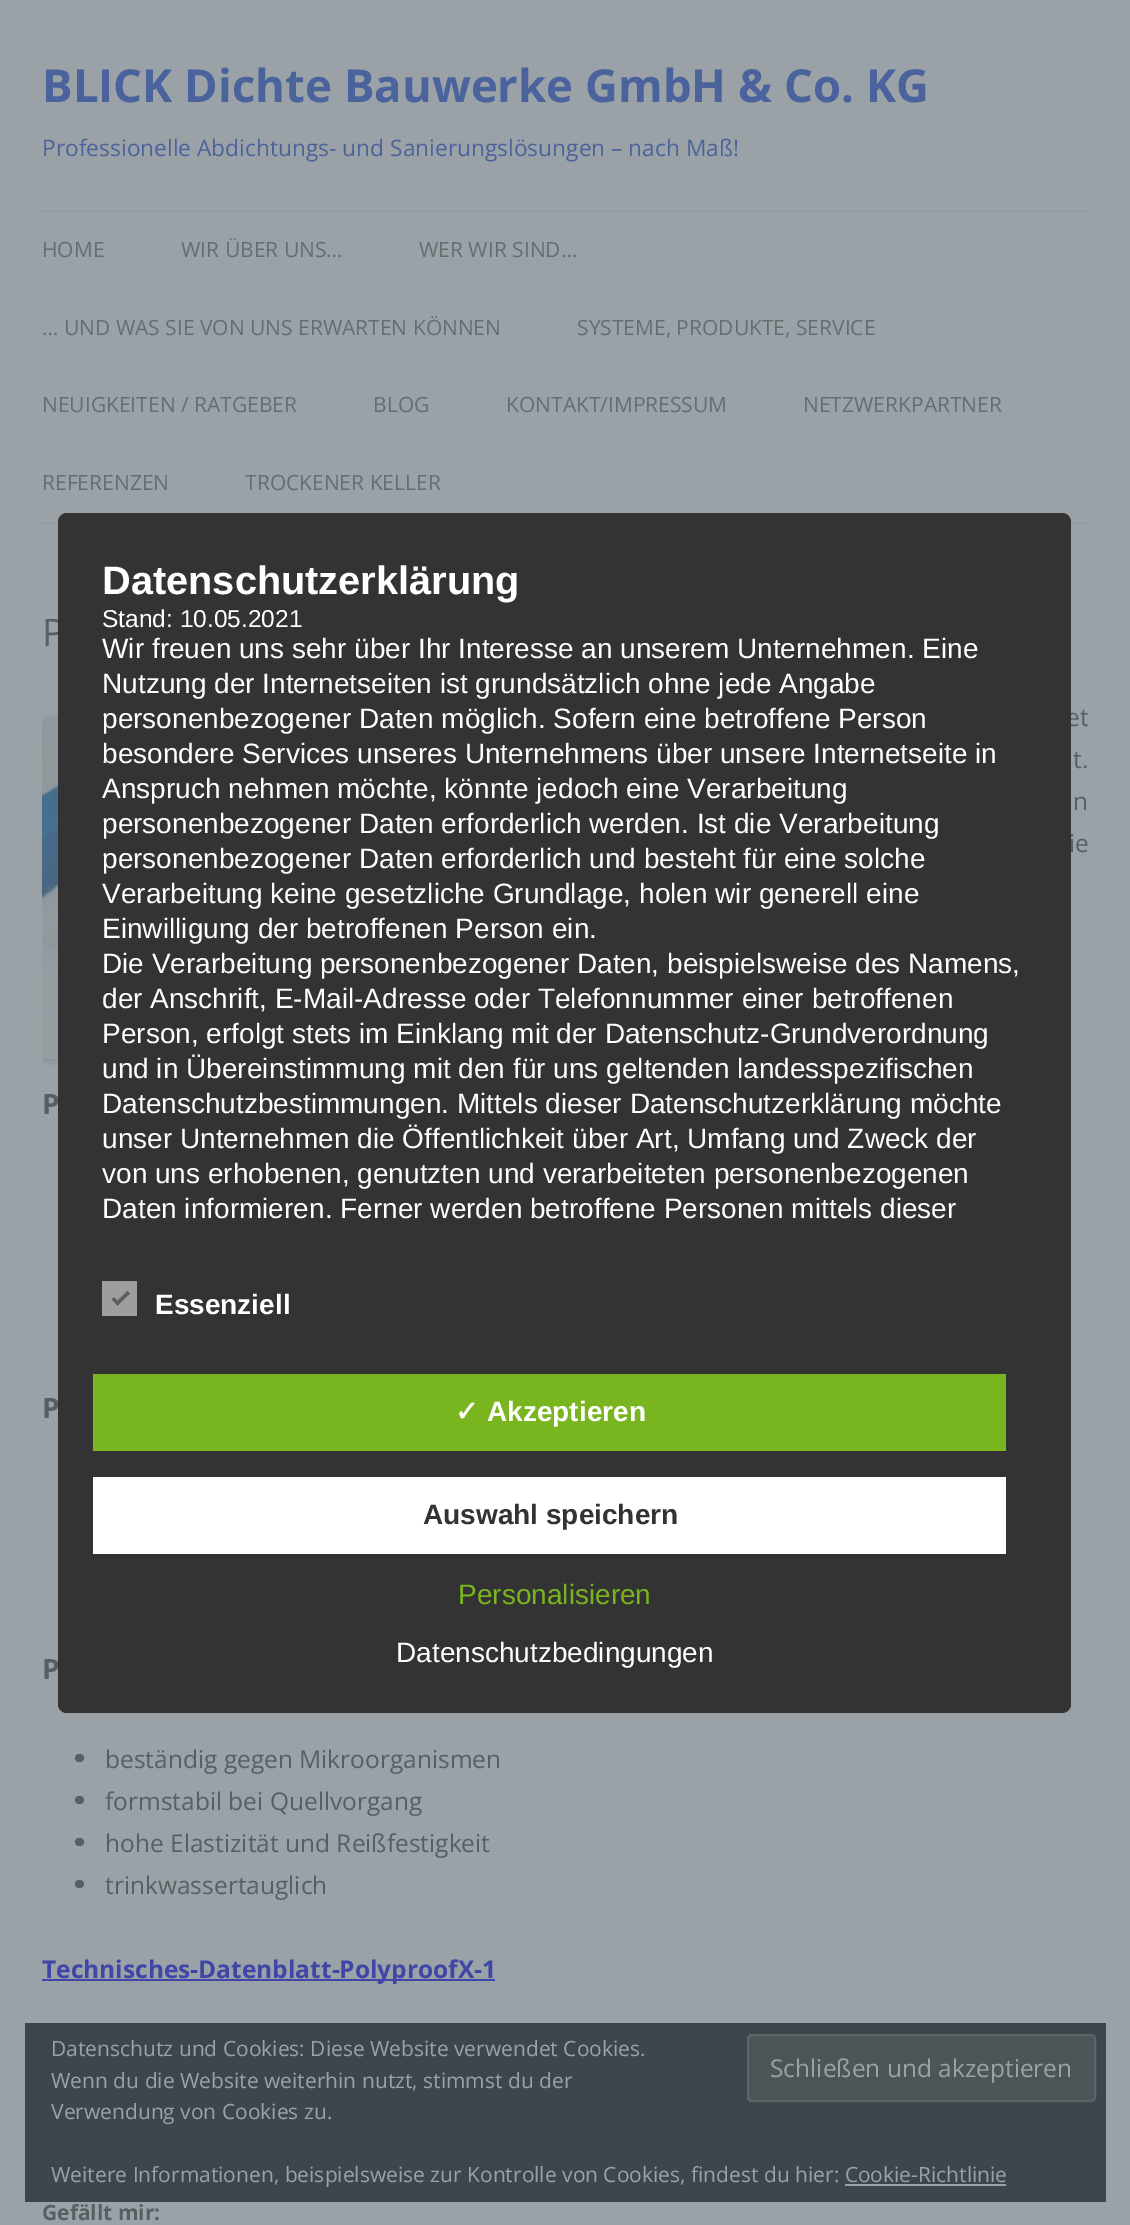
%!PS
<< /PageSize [1130 2225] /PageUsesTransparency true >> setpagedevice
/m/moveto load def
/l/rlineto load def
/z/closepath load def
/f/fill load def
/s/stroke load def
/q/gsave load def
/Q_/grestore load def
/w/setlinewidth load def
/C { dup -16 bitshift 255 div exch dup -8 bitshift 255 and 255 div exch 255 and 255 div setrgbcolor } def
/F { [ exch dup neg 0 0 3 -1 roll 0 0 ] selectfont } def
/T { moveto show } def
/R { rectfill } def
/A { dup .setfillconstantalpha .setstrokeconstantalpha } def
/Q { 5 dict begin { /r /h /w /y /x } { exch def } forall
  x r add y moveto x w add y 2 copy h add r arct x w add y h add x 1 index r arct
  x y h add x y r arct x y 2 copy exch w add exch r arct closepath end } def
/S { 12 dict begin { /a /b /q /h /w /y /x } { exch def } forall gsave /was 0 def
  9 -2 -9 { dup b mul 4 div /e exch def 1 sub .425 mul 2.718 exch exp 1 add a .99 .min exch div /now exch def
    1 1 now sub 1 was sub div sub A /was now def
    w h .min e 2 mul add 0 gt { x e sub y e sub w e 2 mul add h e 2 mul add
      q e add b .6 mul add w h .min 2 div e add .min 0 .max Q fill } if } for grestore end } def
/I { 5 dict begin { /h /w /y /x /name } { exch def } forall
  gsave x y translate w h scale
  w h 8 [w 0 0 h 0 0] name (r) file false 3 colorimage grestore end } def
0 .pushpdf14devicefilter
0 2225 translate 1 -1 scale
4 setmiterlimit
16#9BA2A7 C
0 0 1130 2225 R
/OpenSans-Bold 45.5 F
16#4B639C C
(BLICK Dichte Bauwerke GmbH & Co. KG) 42 102 T
/OpenSans-Regular 22.75 F
(Professionelle Abdichtungs- und Sanierungslösungen – nach Maß!) 42 156 T
16#949CA0 C
42 210 1047 2 R
42 522 1047 2 R
/OpenSans-Regular 21 F
16#656D71 C
(HOME) 42 257 T
(WIR ÜBER UNS…) 181 257 T
(WER WIR SIND…) 419 257 T
(… UND WAS SIE VON UNS ERWARTEN KÖNNEN) 42 335 T
(SYSTEME, PRODUKTE, SERVICE) 577 335 T
(NEUIGKEITEN / RATGEBER) 42 412 T
(BLOG) 373 412 T
(KONTAKT/IMPRESSUM) 506 412 T
(NETZWERKPARTNER) 803 412 T
(REFERENZEN) 42 490 T
(TROCKENER KELLER) 245 490 T
/OpenSans-Regular 38 F
16#575F63 C
(P) 42 646 T
q
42 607 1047 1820 rectclip
16#3F464B C
42 719 350 342 5 3.5 .2 S
Q_
(1.rgb) 42 717 16 342 I
/OpenSans-Regular 24.5 F
(et) 1066 726 T
1073 768 m 2 0 32 (t.) widthshow
1073 810 m 9 0 32 (n) widthshow
1069 852 m 22 0 32 (ie) widthshow
/OpenSans-Bold 28 F
(P) 42 1114 T
(P) 42 1418 T
(P) 42 1679 T
75 1754 9 8 4 Q f
/OpenSans-Regular 24.5 F
(beständig gegen Mikroorganismen) 105 1768 T
75 1796 9 8 4 Q f
(formstabil bei Quellvorgang) 105 1810 T
75 1838 9 8 4 Q f
(hohe Elastizität und Reißfestigkeit) 105 1852 T
75 1880 9 8 4 Q f
(trinkwassertauglich) 105 1894 T
16#3F46A7 C
42 1979 453 2 R
/OpenSans-Bold 24.5 F
(Technisches-Datenblatt-PolyproofX-1) 42 1978 T
/OpenSans-Bold 21 F
16#575F63 C
(Gefällt mir:) 42 2220 T
16#333333 C
58 513 1013 1200 9 Q f
/LiberationSans-Bold 39.75 F
16#FFFFFF C
(Datenschutzerklärung) 102 594 T
/LiberationSans-Regular 24.5 F
(Stand: 10.05.2021) 102 627 T
/LiberationSans-Regular 28 F
(Wir freuen uns sehr über Ihr Interesse an unserem Unternehmen. Eine) 102 658 T
(Nutzung der Internetseiten ist grundsätzlich ohne jede Angabe) 102 693 T
(personenbezogener Daten möglich. Sofern eine betroffene Person) 102 728 T
(besondere Services unseres Unternehmens über unsere Internetseite in) 102 763 T
(Anspruch nehmen möchte, könnte jedoch eine Verarbeitung) 102 798 T
(personenbezogener Daten erforderlich werden. Ist die Verarbeitung) 102 833 T
(personenbezogener Daten erforderlich und besteht für eine solche) 102 868 T
(Verarbeitung keine gesetzliche Grundlage, holen wir generell eine) 102 903 T
(Einwilligung der betroffenen Person ein.) 102 938 T
(Die Verarbeitung personenbezogener Daten, beispielsweise des Namens,) 102 973 T
(der Anschrift, E-Mail-Adresse oder Telefonnummer einer betroffenen) 102 1008 T
(Person, erfolgt stets im Einklang mit der Datenschutz-Grundverordnung) 102 1043 T
(und in Übereinstimmung mit den für uns geltenden landesspezifischen) 102 1078 T
(Datenschutzbestimmungen. Mittels dieser Datenschutzerklärung möchte) 102 1113 T
(unser Unternehmen die Öffentlichkeit über Art, Umfang und Zweck der) 102 1148 T
(von uns erhobenen, genutzten und verarbeiteten personenbezogenen) 102 1183 T
(Daten informieren. Ferner werden betroffene Personen mittels dieser) 102 1218 T
16#9E9E9E C
102 1281 35 35 R
16#5E5E5E C
127.5 1291 m 2.5 2.5 l -12.5 12 l -2.5 -2.5 l z f
114 1297 m 6 6 l -2.5 2.5 l -6 -6 l z f
/LiberationSans-Bold 28 F
16#FFFFFF C
(Essenziell) 155 1314 T
16#79B51F C
93 1374 913 77 R
/DejaVuSans-Bold 28 F
16#FFFFFF C
(✓) 455 1421 T
/LiberationSans-Bold 28 F
(Akzeptieren) 487 1421 T
93 1477 913 77 R
16#333333 C
(Auswahl speichern) 423 1524 T
/LiberationSans-Regular 28 F
16#79B51F C
(Personalisieren) 458 1604 T
16#FFFFFF C
(Datenschutzbedingungen) 396 1662 T
16#3F464B C
25 2023 1081 179 R
/OpenSans-Regular 21 F
16#9BA2A7 C
(Datenschutz und Cookies: Diese Website verwendet Cookies.) 51 2056 T
(Wenn du die Website weiterhin nutzt, stimmst du der) 51 2088 T
16#4D5559 C
748 2035 347 66 4 Q q f Q_
16#5D6469 C
2 w
s
/OpenSans-Regular 24.5 F
16#9BA2A7 C
(Schließen und akzeptieren) 770 2077 T
/OpenSans-Regular 21 F
(Verwendung von Cookies zu.) 51 2119 T
(Weitere Informationen, beispielsweise zur Kontrolle von Cookies, findest du hier: Cookie-Richtlinie) 51 2182 T
845 2184 161 2 R
.poppdf14devicefilter showpage
